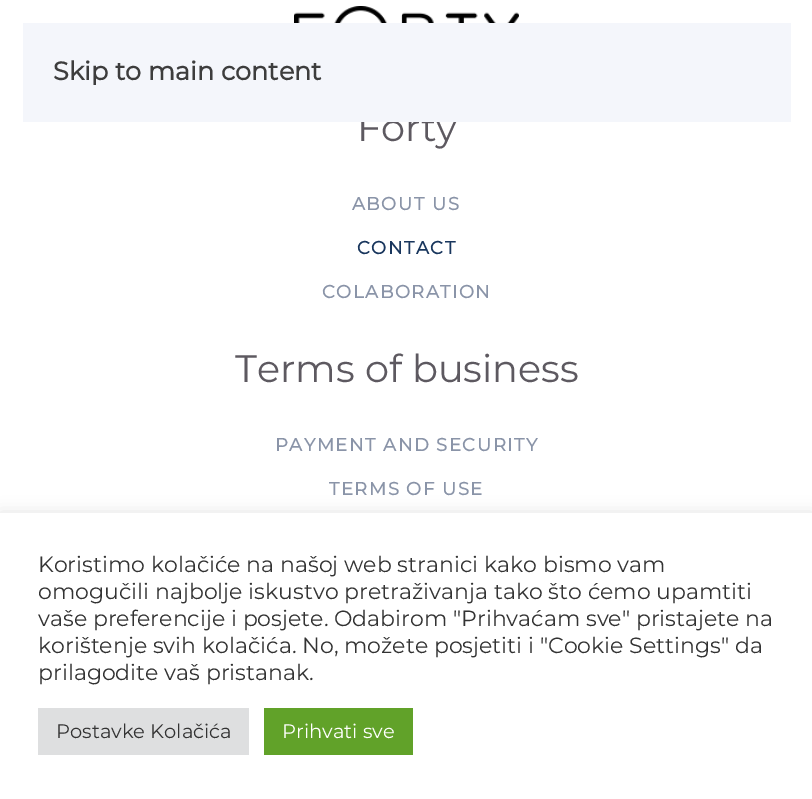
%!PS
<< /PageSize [812 799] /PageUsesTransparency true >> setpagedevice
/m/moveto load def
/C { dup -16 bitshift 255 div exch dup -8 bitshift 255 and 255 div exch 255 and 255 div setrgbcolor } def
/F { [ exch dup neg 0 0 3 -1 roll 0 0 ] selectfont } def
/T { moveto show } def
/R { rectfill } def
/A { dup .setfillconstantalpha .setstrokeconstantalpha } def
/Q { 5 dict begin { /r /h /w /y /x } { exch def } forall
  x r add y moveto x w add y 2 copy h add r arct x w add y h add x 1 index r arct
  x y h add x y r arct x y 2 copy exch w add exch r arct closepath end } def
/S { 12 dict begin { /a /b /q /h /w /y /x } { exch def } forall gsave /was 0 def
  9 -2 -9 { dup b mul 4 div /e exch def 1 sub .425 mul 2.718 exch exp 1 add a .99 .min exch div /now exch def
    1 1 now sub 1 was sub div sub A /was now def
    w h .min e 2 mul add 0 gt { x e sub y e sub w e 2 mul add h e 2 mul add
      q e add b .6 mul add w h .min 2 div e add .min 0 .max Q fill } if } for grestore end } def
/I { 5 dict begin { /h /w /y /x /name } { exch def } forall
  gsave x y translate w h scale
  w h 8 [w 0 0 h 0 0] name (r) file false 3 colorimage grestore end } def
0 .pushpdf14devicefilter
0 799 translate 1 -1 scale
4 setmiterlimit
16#FFFFFF C
0 0 812 799 R
/Montserrat-Regular 38.25 F
16#5D5960 C
(Forty) 357 141 T
16#F4F6FB C
23 23 768 99 R
/Montserrat-Bold 25.5 F
16#3D3D3D C
(Skip to main content) 53 80 T
(1.rgb) 294 6 225 17 I
/Montserrat-Bold 18 F
16#8A94A8 C
352 210 m 1.5 0 (ABOUT US) ashow
16#19365D C
357 254 m 1.5 0 (CONTACT) ashow
16#8A94A8 C
322 298 m 1.5 0 (COLABORATION) ashow
/Montserrat-Regular 38.25 F
16#5D5960 C
(Terms of business) 235 382 T
/Montserrat-Bold 18 F
16#8A94A8 C
275 451 m 1.5 0 (PAYMENT AND SECURITY) ashow
329 495 m 1.5 0 (TERMS OF USE) ashow
16#ACABAB C
0 512 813 286 0 7.5 .3 S
16#FFFFFF C
0 513 812 286 R
/Montserrat-Regular 22 F
16#333333 C
(Koristimo kolačiće na našoj web stranici kako bismo vam) 38 572 T
(omogučili najbolje iskustvo pretraživanja tako što ćemo upamtiti) 38 599 T
(vaše preferencije i posjete. Odabirom "Prihvaćam sve" pristajete na) 38 626 T
(korištenje svih kolačića. No, možete posjetiti i "Cookie Settings" da) 38 653 T
(prilagodite vaš pristanak.) 38 680 T
16#DEDFE0 C
38 708 211 47 R
/Montserrat-Regular 19.5 F
16#333333 C
(Postavke Kolačića) 56 738 T
16#61A229 C
264 708 149 47 R
16#FFFFFF C
(Prihvati sve) 282 738 T
.poppdf14devicefilter showpage
